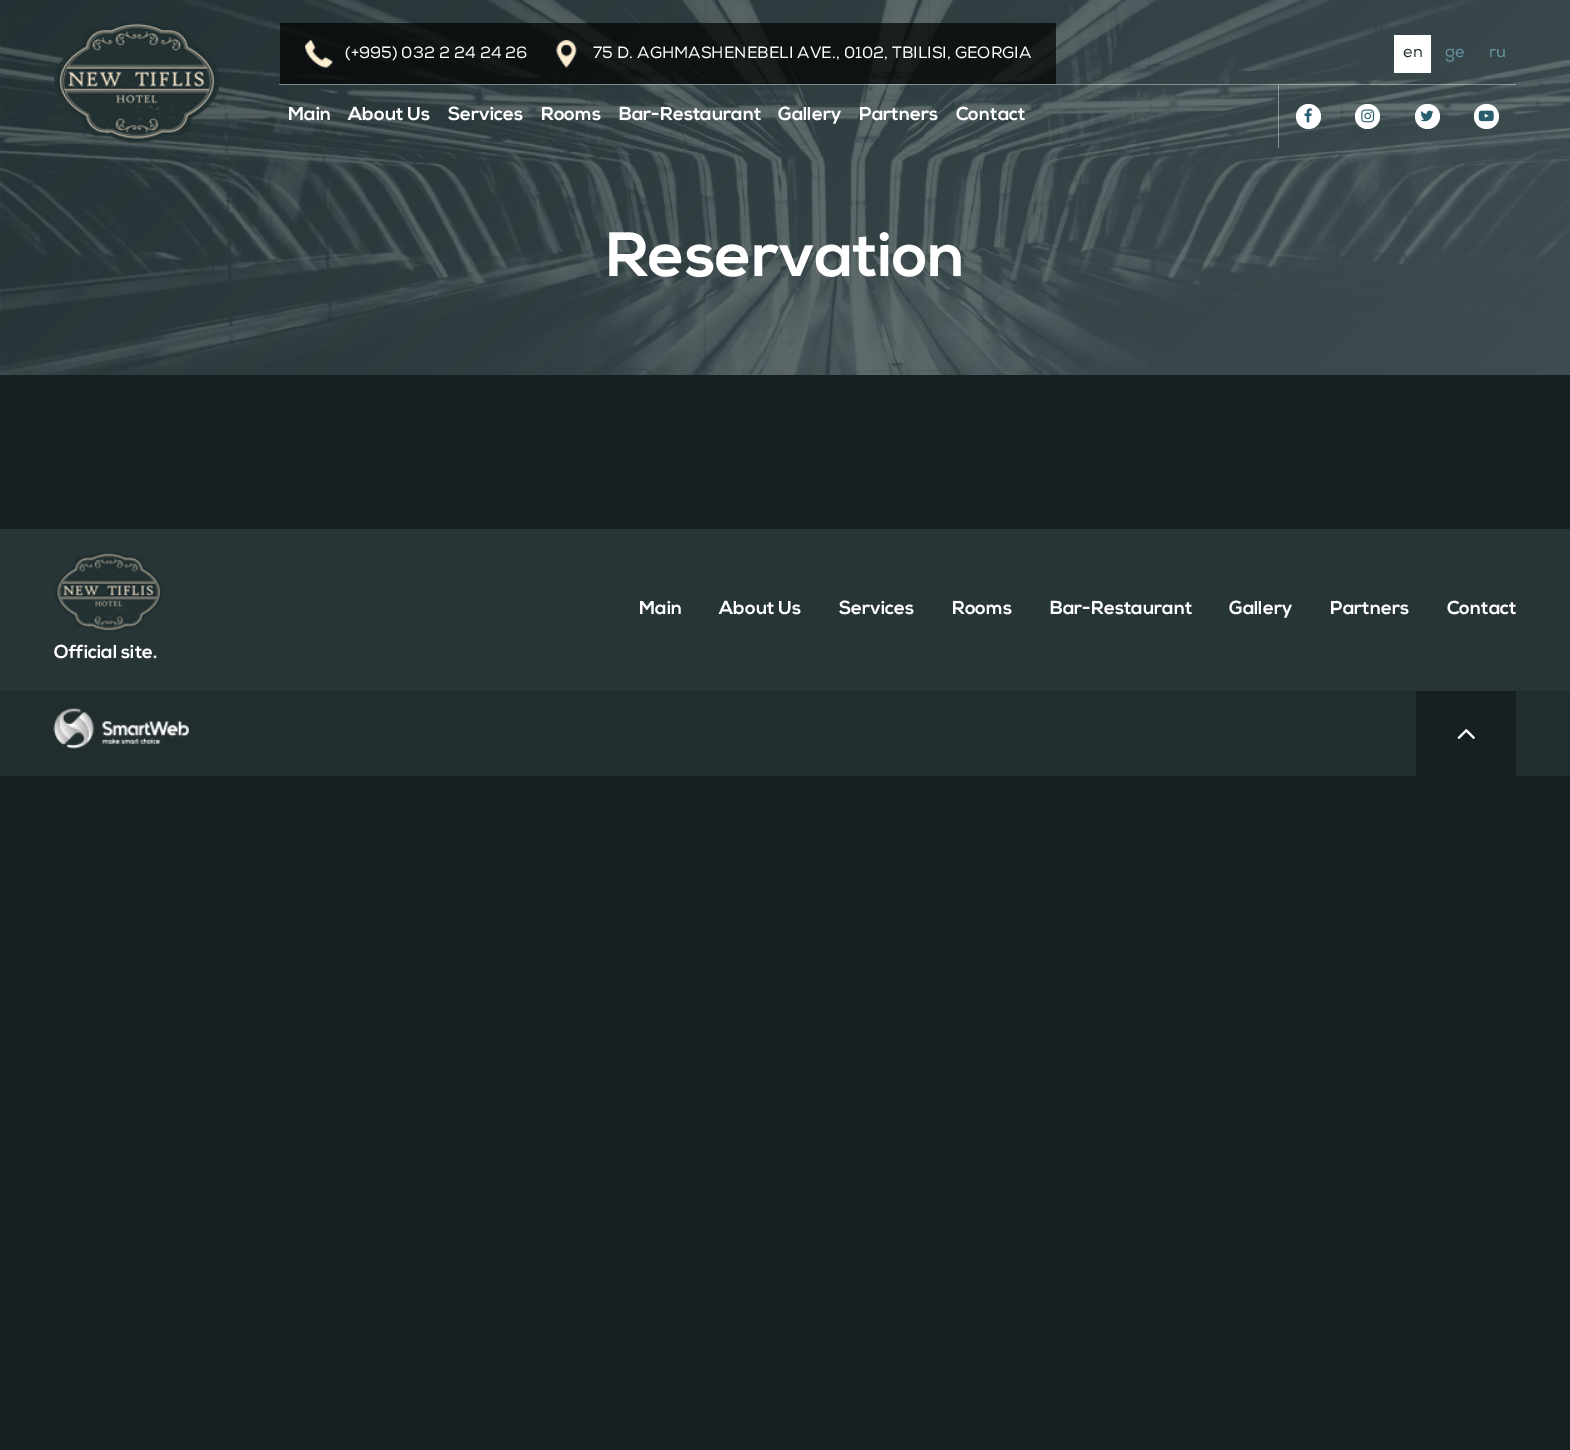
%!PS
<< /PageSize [1570 1450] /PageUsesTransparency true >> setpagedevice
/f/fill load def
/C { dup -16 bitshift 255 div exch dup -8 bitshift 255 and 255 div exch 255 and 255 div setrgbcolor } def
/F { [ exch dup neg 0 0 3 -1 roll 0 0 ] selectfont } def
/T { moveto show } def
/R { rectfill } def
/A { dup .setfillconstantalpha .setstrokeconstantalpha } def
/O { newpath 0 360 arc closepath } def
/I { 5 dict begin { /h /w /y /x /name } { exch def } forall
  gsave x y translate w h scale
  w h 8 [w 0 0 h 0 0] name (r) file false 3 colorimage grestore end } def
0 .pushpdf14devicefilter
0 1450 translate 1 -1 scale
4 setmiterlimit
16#172021 C
0 0 1570 1450 R
(8.rgb) 0 0 1570 375 I
(1.rgb) 54 21 166 122 I
0.4 A
16#FFFFFF C
279 84 1237 1 R
0.7 A
16#000000 C
280 23 248 61 R
1 A
(2.rgb) 305 40 28 28 I
/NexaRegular-Regular 16.25 F
16#FFFFFF C
(\(+995\) 032 2 24 24 26) 345 58 T
0.7 A
16#000000 C
528 23 528 61 R
1 A
(3.rgb) 556 40 21 28 I
16#FFFFFF C
(75 D. AGHMASHENEBELI AVE., 0102, TBILISI, GEORGIA) 593 58 T
1394 35 37 38 R
16#233133 C
(en) 1403 57 T
16#6794A2 C
(ge) 1445 57 T
(ru) 1489 57 T
0.4 A
16#FFFFFF C
1278 85 1 63 R
/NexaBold-Bold 18.75 F
1 A
(Main) 288 120 T
(About Us) 348 120 T
(Services) 448 120 T
(Rooms) 541 120 T
(Bar-Restaurant) 619 120 T
(Gallery) 778 120 T
(Partners) 859 120 T
(Contact) 956 120 T
1308.5 116.5 12.5 O f
(4.rgb) 1304 108 8 15 I
1367.5 116.5 12.5 O f
(5.rgb) 1361 109 14 14 I
1427.5 116.5 12.5 O f
(6.rgb) 1420 110 14 12 I
1486.5 116.5 12.5 O f
(7.rgb) 1478 110 16 12 I
/NexaBold-Bold 62.5 F
(Reservation) 606 276 T
16#283536 C
0 529 1570 162 R
/NexaBold-Bold 18.75 F
16#FFFFFF C
(Main) 639 614 T
(About Us) 719 614 T
(Services) 839 614 T
(Rooms) 952 614 T
(Bar-Restaurant) 1050 614 T
(Gallery) 1229 614 T
(Partners) 1330 614 T
(Contact) 1447 614 T
(9.rgb) 54 552 109 80 I
(Official site.) 54 658 T
16#212D2E C
0 691 1570 85 R
(10.rgb) 53 708 136 41 I
16#172021 C
1416 691 100 85 R
(11.rgb) 1457 729 18 10 I
.poppdf14devicefilter showpage
